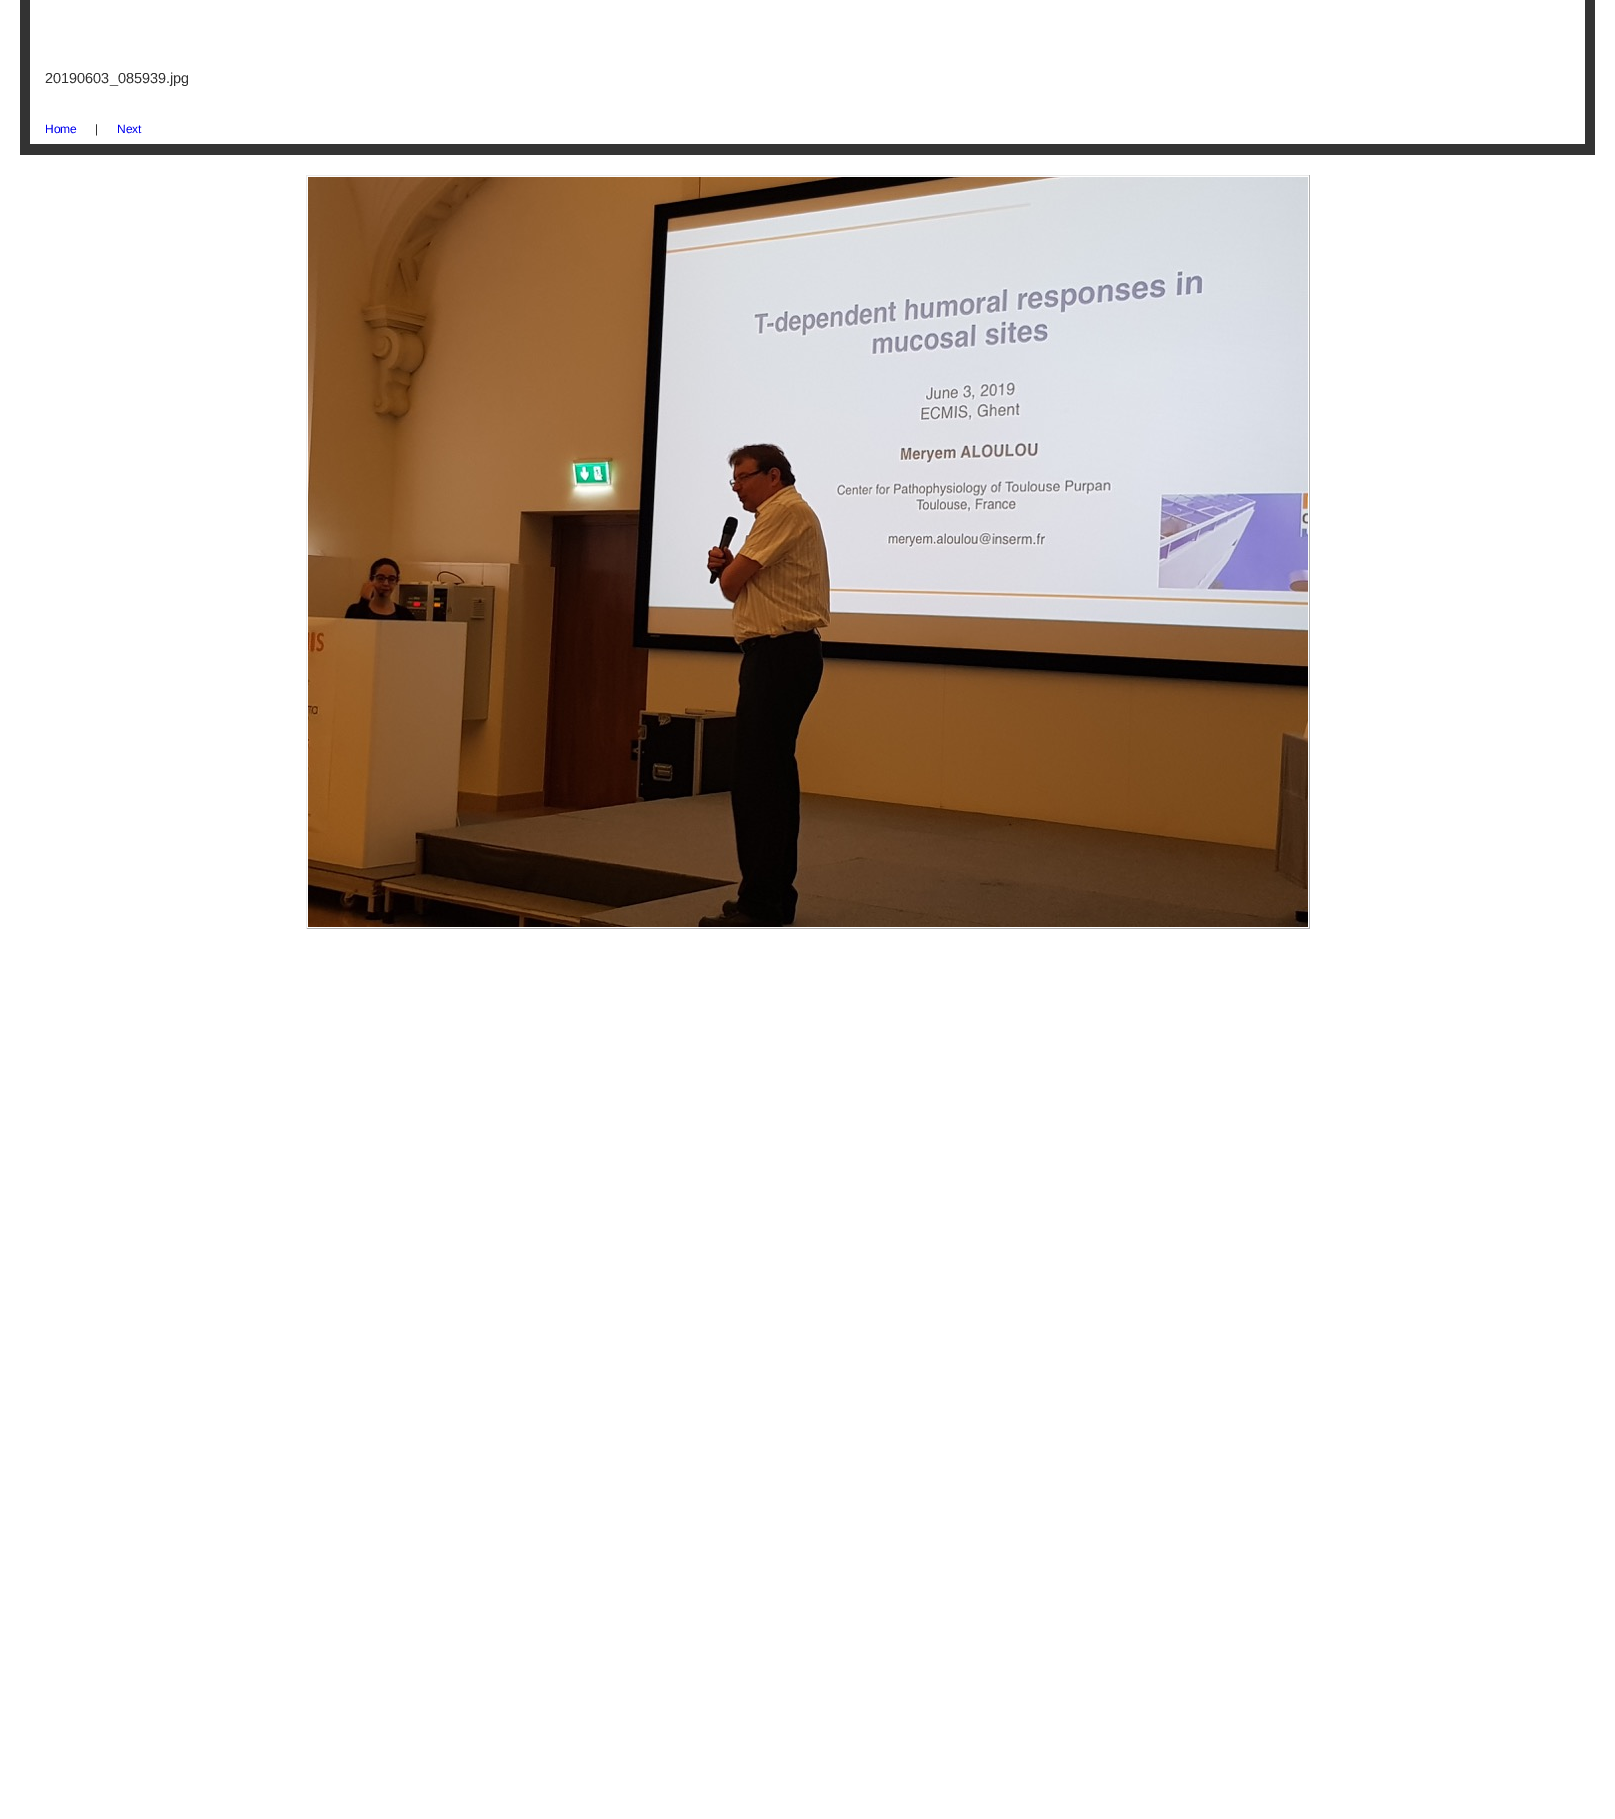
%!PS
<< /PageSize [1615 1819] >> setpagedevice
/C { dup -16 bitshift 255 div exch dup -8 bitshift 255 and 255 div exch 255 and 255 div setrgbcolor } def
/F { [ exch dup neg 0 0 3 -1 roll 0 0 ] selectfont } def
/T { moveto show } def
/R { rectfill } def
/I { 5 dict begin { /h /w /y /x /name } { exch def } forall
  gsave x y translate w h scale
  w h 8 [w 0 0 h 0 0] name (r) file false 3 colorimage grestore end } def
0 1819 translate 1 -1 scale
4 setmiterlimit
16#FFFFFF C
0 0 1615 1819 R
16#333333 C
1585 0 10 145 R
30 145 1565 10 R
20 0 10 155 R
/LiberationSans-Regular 14.5 F
(20190603_085939.jpg) 45 83 T
30 144 1555 1 R
/LiberationSans-Regular 12 F
16#0000EE C
(Home) 45 133 T
16#333333 C
(|) 95 133 T
16#0000EE C
(Next) 117 133 T
16#EAEAEA C
306 175 1004 1 R
16#B0B0B0 C
1309 175 1 754 R
306 928 1004 1 R
16#EAEAEA C
306 175 1 754 R
(1.rgb) 308 177 1000 750 I
showpage
